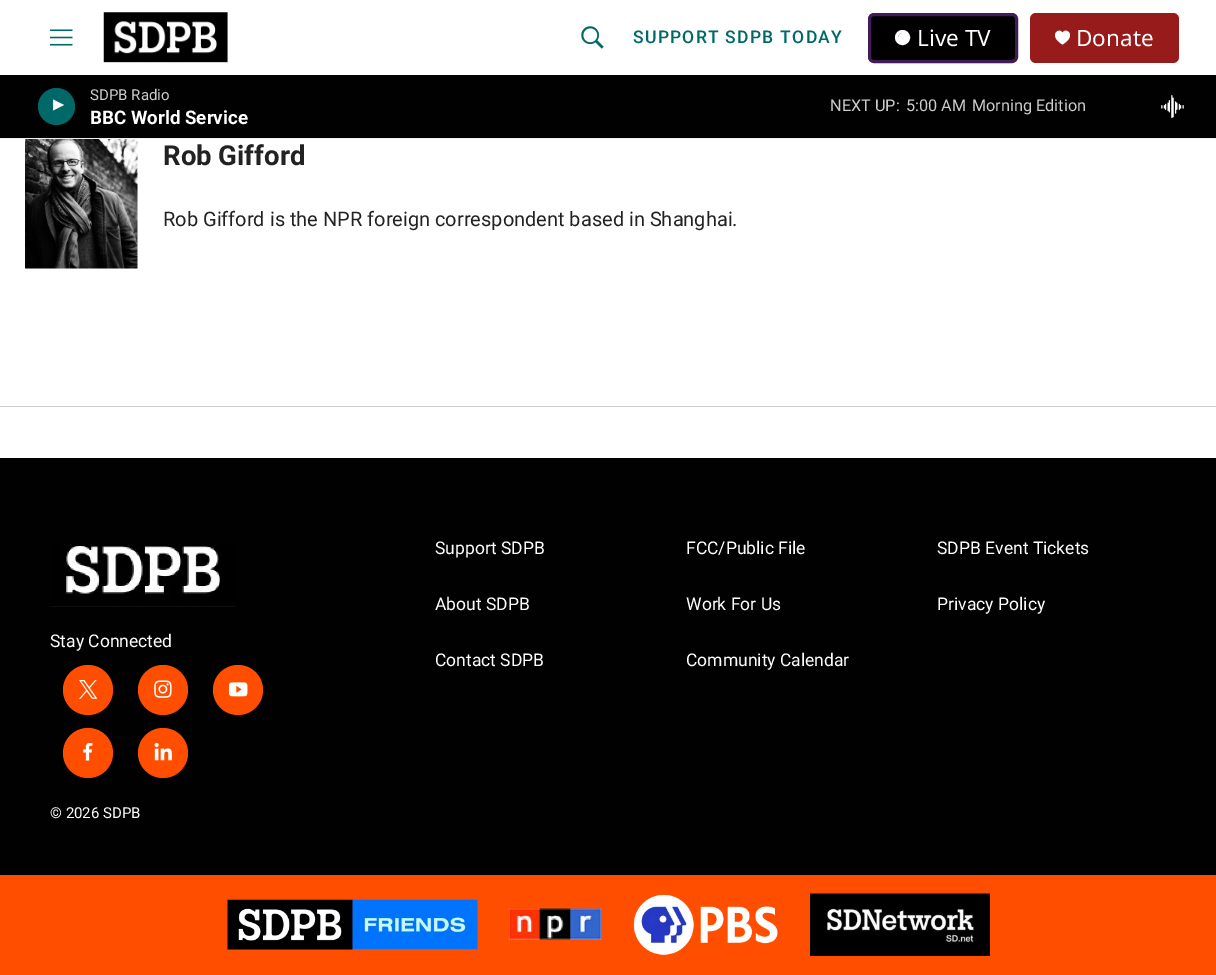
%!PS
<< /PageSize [1216 975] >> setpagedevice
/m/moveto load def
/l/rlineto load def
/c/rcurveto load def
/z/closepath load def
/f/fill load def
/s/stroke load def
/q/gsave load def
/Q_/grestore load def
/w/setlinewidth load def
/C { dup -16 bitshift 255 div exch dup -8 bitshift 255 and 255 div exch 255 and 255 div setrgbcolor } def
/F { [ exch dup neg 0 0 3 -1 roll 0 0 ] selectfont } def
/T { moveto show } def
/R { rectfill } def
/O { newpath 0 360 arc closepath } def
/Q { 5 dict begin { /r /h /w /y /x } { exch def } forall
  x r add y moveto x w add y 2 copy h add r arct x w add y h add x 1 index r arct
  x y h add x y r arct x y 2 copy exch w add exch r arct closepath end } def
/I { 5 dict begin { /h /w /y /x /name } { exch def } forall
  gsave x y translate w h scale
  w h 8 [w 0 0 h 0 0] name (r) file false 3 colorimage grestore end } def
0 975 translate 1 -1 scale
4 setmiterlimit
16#FFFFFF C
0 0 1216 975 R
16#F1F1F1 C
0 138 1216 1 R
(1.rgb) 50 29 23 17 I
(2.rgb) 103 12 125 51 I
(3.rgb) 581 26 23 23 I
/Roboto-Medium 17.5 F
16#006968 C
633 43 m 1.25 0 (SUPPORT SDPB TODAY) ashow
16#000000 C
869.5 14.5 147 47 4.5 Q q f Q_
16#411C58 C
3 w
s
16#FFFFFF C
902.5 37.5 6 O s
903 33 m 6.5 0 6.5 10 0 10 c -5 0 -6.5 -5.5 -3 -9 c 1 -.5 2 -1 3 -1 c z f
/NotoSans-Regular 22.5 F
(Live TV) 917 46 T
16#981B1B C
1030 13 149 50 6 Q f
16#FFFFFF C
1062.5 33 m -2.5 -6.5 -15.5 2 0 11.5 c 15.5 -9.5 2.5 -18 0 -11.5 c z f
(Donate) 1076 46 T
16#010101 C
0 75 1216 63 R
16#006968 C
56.5 106.5 18.5 O f
q
53 98 14 18 rectclip
16#FFFFFF C
52 99 m 12 6 l -12 6 l z f
Q_
/Roboto-Regular 15 F
16#CCCCCC C
(SDPB Radio) 90 100 T
/Roboto-Bold 18.75 F
16#FFFFFF C
(BBC World Service) 90 124 T
/Roboto-Regular 16.25 F
16#CCCCCC C
(NEXT UP:) 830 111 T
(5:00 AM) 906 111 T
(Morning Edition) 972 111 T
(4.rgb) 1161 95 23 23 I
(5.rgb) 25 139 113 130 I
/Roboto-Bold 27.5 F
16#222222 C
(Rob Gifford) 163 165 T
/Roboto-Regular 20 F
(Rob Gifford is the NPR foreign correspondent based in Shanghai.) 163 226 T
16#CCCCCC C
0 406 1216 1 R
16#010101 C
0 458 1216 417 R
/Roboto-Regular 17.5 F
16#FFFFFF C
(Support SDPB) 435 554 T
(FCC/Public File) 686 554 T
(SDPB Event Tickets) 937 554 T
(About SDPB) 435 610 T
(Work For Us) 686 610 T
(Privacy Policy) 937 610 T
(Contact SDPB) 435 666 T
(Community Calendar) 686 666 T
(6.rgb) 50 544 186 63 I
(Stay Connected) 50 647 T
16#FF4E00 C
88 690 25 O f
(7.rgb) 79 680 19 19 I
163 690 25 O f
(8.rgb) 154 680 18 18 I
238 690 25 O f
(9.rgb) 229 682 19 15 I
88 753 25 O f
(10.rgb) 83 743 10 18 I
163 753 25 O f
(11.rgb) 154 743 18 18 I
/Roboto-Regular 15 F
16#FFFFFF C
(© 2026 SDPB) 50 818 T
16#FF4E00 C
0 875 1216 100 R
(12.rgb) 227 899 251 51 I
(13.rgb) 508 908 94 32 I
(14.rgb) 633 894 145 61 I
(15.rgb) 810 893 180 63 I
showpage
